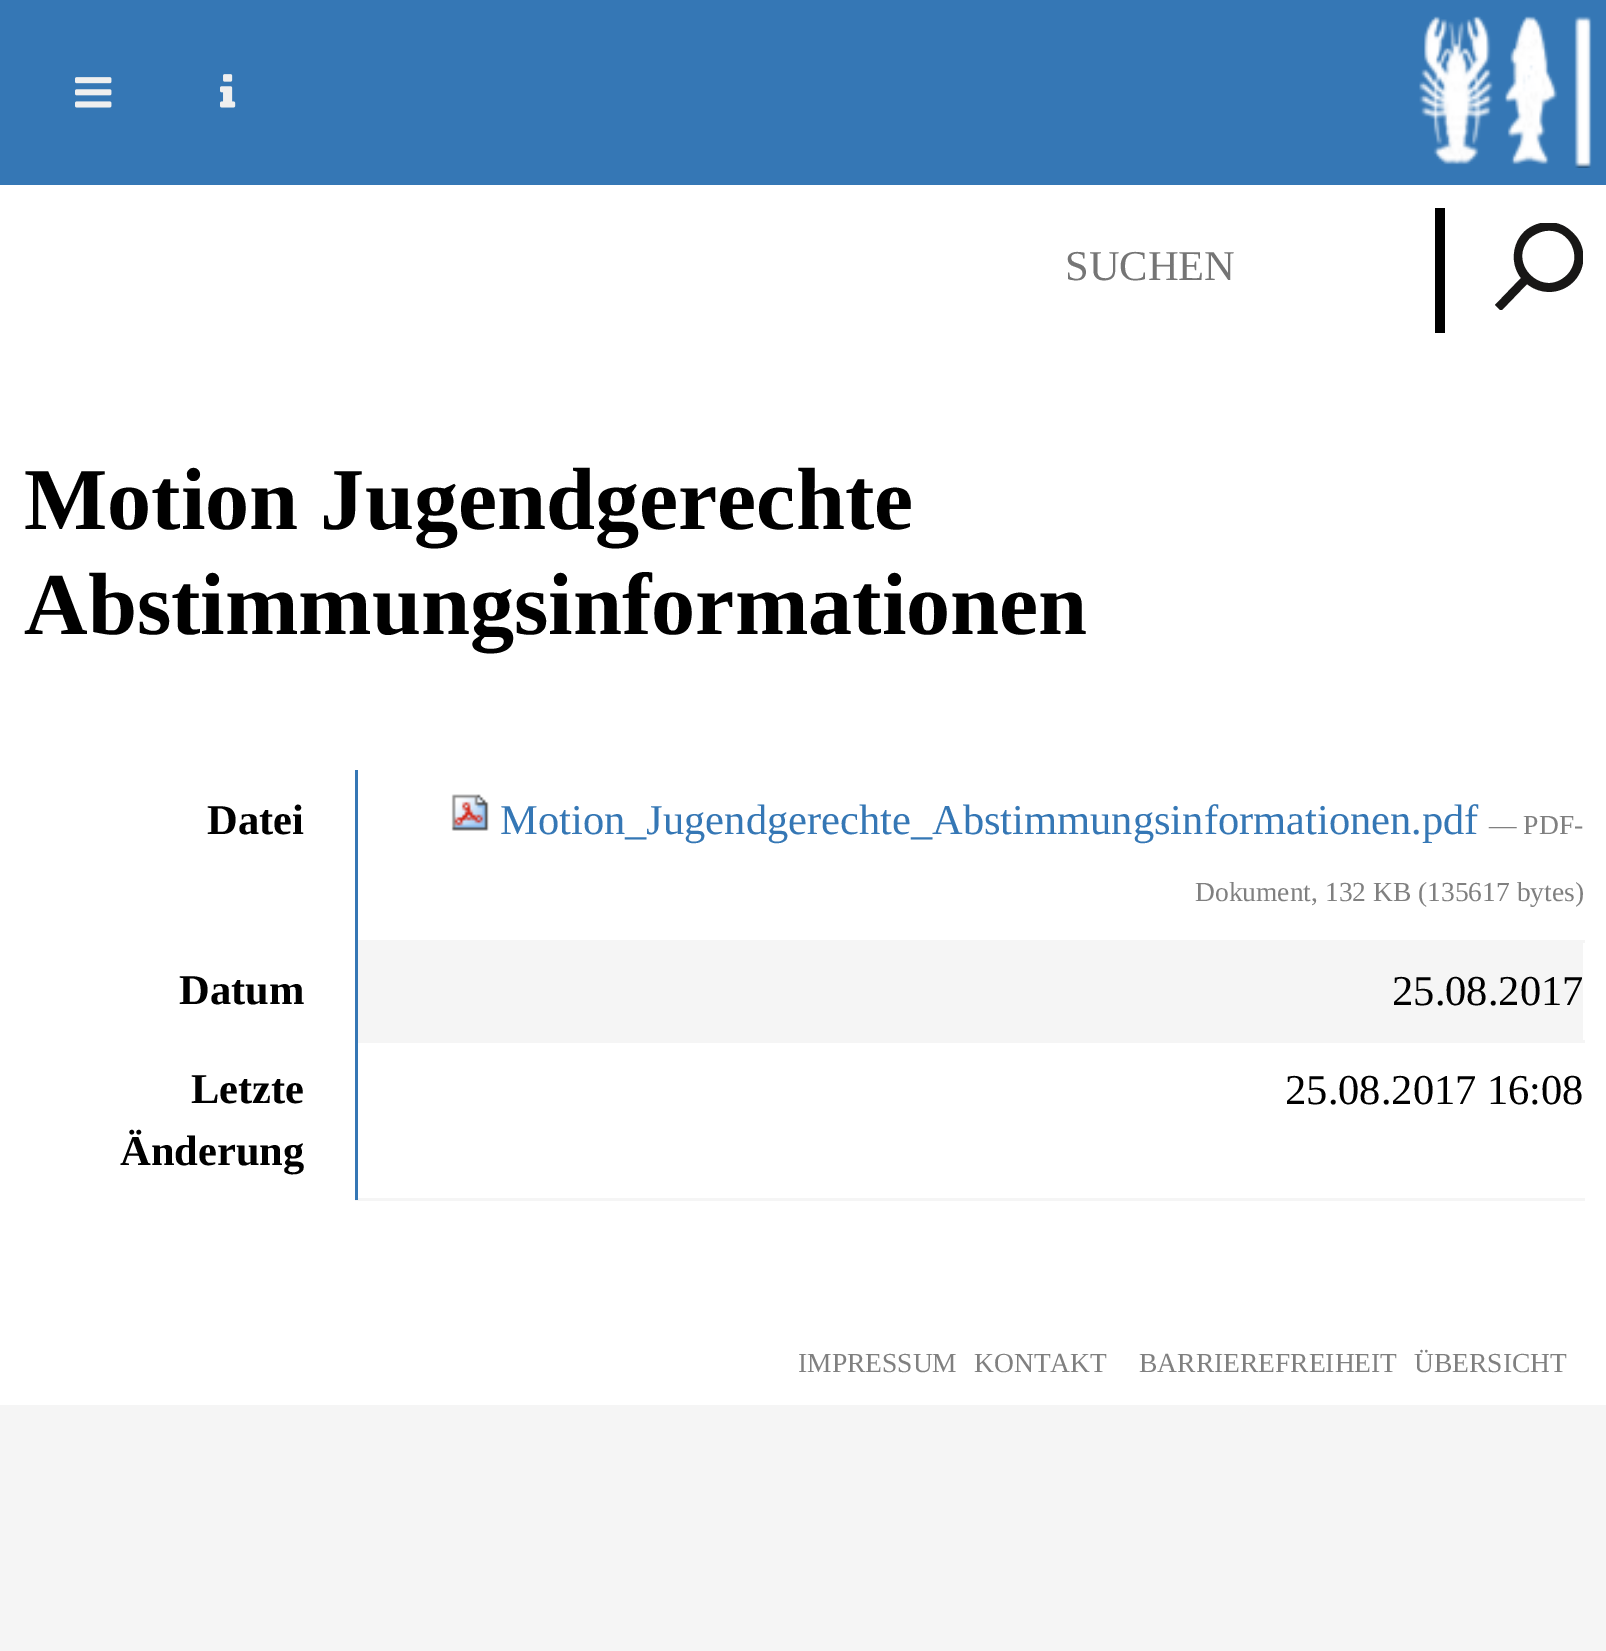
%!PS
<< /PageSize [1606 1651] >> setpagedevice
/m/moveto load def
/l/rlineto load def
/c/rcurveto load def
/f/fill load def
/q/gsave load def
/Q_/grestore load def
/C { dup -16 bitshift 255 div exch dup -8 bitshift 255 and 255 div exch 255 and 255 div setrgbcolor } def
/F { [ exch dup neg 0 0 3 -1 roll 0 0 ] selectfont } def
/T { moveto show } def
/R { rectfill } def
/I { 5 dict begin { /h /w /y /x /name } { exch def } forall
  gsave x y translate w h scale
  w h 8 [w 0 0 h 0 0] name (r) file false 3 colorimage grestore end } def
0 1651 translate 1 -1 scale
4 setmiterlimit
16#F5F5F5 C
0 0 1606 1651 R
16#3577B5 C
0 0 1606 185 R
(1.rgb) 75 77 37 31 I
(2.rgb) 220 74 16 34 I
(3.rgb) 1419 16 173 152 I
16#FFFFFF C
0 185 1606 1220 R
/LiberationSerif-Regular 42.5 F
16#757575 C
(SUCHEN) 1065 280 T
16#000000 C
1435 208 10 125 R
q
1495 223 88 87 rectclip
16#181716 C
1567 275 m -24 24 -60 -11 -38 -36 c 4 -4 10 -7 16 -8 c 25 -4 39 27 22 44 c 1573 233 m -13 -14 -34 -14 -48 -2 c -13 12 -15 33 -4 47 c -26 27 l 6 6 l 26 -27 l 15 12 36 10 48 -4 c 12 -14 11 -35 -2 -47 c f
Q_
/LiberationSerif-Bold 88.2 F
(Motion Jugendgerechte) 24 529 T
(Abstimmungsinformationen) 24 634 T
16#F5F5F5 C
355 1198 1230 3 R
16#3577B5 C
355 1040 3 160 R
16#F5F5F5 C
355 1040 1230 3 R
16#3577B5 C
355 940 3 103 R
16#F5F5F5 C
355 940 1230 3 R
16#3577B5 C
355 770 3 173 R
/LiberationSerif-Bold 42.5 F
16#000000 C
(Datei) 207 834 T
(4.rgb) 451 794 38 37 I
/LiberationSerif-Regular 42.5 F
16#3577B5 C
(Motion_Jugendgerechte_Abstimmungsinformationen.pdf) 500 834 T
/LiberationSerif-Regular 27.5 F
16#808080 C
(— PDF-) 1489 834 T
(Dokument, 132 KB \(135617 bytes\)) 1195 901 T
/LiberationSerif-Bold 42.5 F
16#000000 C
(Datum) 179 1004 T
16#F5F5F5 C
358 943 1225 97 R
/LiberationSerif-Regular 42.5 F
16#000000 C
(25.08.2017) 1392 1005 T
/LiberationSerif-Bold 42.5 F
(Letzte) 191 1103 T
(Änderung) 120 1165 T
/LiberationSerif-Regular 42.5 F
(25.08.2017 16:08) 1285 1104 T
/LiberationSerif-Regular 27.5 F
16#808080 C
(IMPRESSUM) 798 1372 T
(KONTAKT) 974 1372 T
(BARRIEREFREIHEIT) 1139 1372 T
(ÜBERSICHT) 1414 1372 T
showpage
